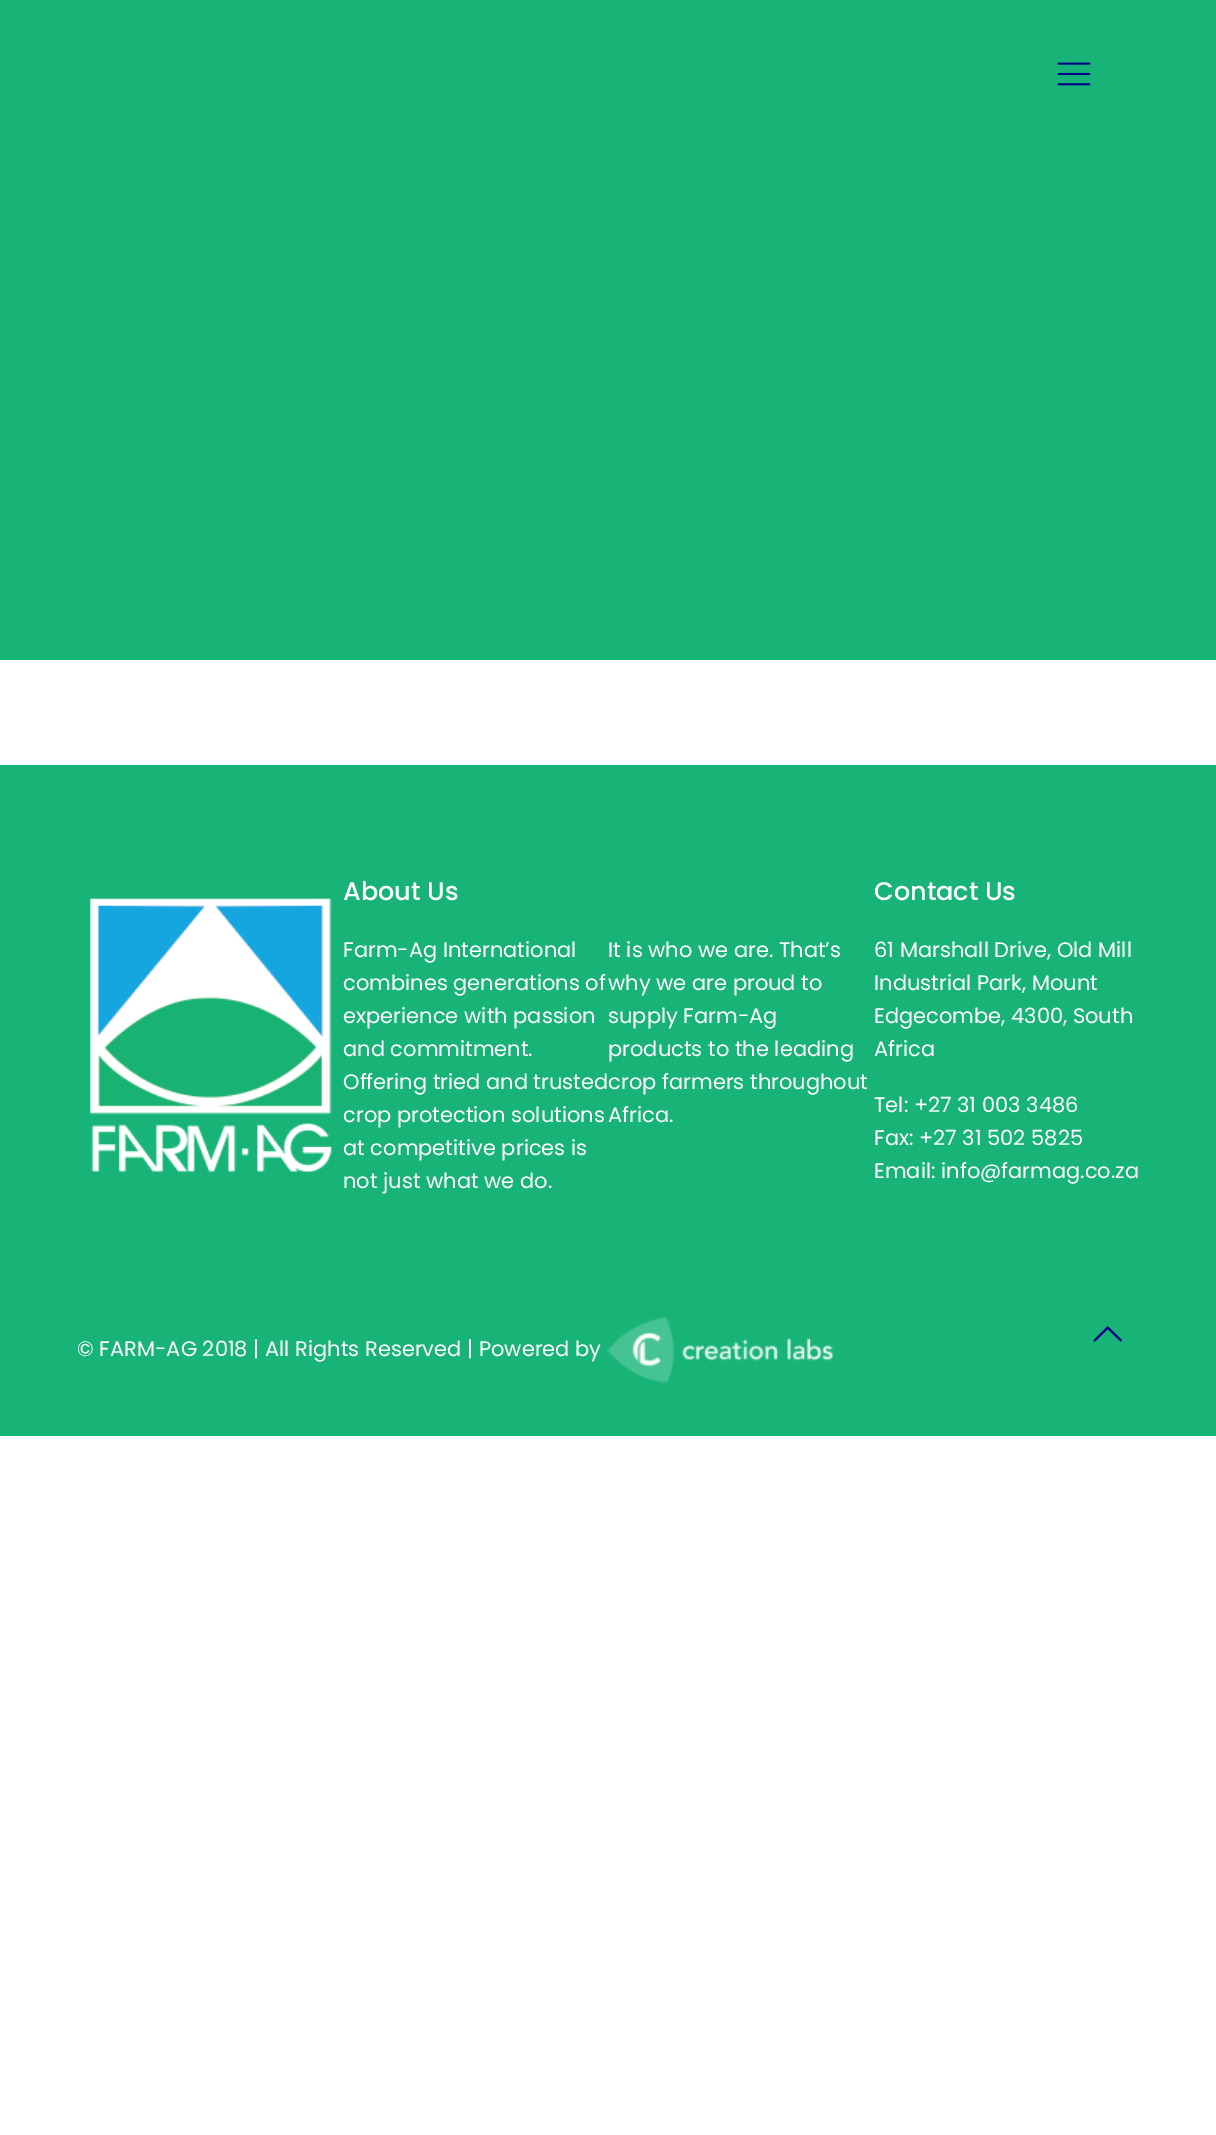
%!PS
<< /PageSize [1216 2135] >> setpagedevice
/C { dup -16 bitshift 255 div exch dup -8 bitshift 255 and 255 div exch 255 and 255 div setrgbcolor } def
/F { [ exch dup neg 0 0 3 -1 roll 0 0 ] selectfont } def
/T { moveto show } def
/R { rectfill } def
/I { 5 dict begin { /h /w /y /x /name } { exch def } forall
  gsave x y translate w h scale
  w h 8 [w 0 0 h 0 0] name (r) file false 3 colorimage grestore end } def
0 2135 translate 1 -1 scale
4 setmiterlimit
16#FFFFFF C
0 0 1216 2135 R
16#18B477 C
0 0 1216 660 R
(1.rgb) 1057 62 34 24 I
0 765 1216 671 R
(2.rgb) 90 898 242 274 I
/Poppins-Medium 25.5 F
16#FFFFFF C
(About Us) 343 900 T
/Poppins-Regular 21 F
(Farm-Ag International) 343 957 T
(combines generations of) 343 990 T
(experience with passion) 343 1023 T
(and commitment.) 343 1056 T
(Offering tried and trustedcrop farmers throughout) 343 1089 T
(crop protection solutions) 343 1122 T
(at competitive prices is) 343 1155 T
(not just what we do.) 343 1188 T
/Poppins-Medium 25.5 F
(Contact Us) 874 900 T
/Poppins-Regular 21 F
(61 Marshall Drive, Old Mill) 874 957 T
(Industrial Park, Mount) 874 990 T
(Edgecombe, 4300, South) 874 1023 T
(Africa) 874 1056 T
(Tel: +27 31 003 3486) 874 1112 T
(Fax: +27 31 502 5825) 874 1145 T
(Email: info@farmag.co.za) 874 1178 T
(It is who we are. That’s) 608 957 T
(why we are proud to) 608 990 T
(supply Farm-Ag) 608 1023 T
(products to the leading) 608 1056 T
(Africa.) 608 1122 T
(3.rgb) 1093 1326 29 16 I
(© FARM-AG 2018 | All Rights Reserved | Powered by) 77 1356 T
(4.rgb) 607 1317 226 66 I
showpage
